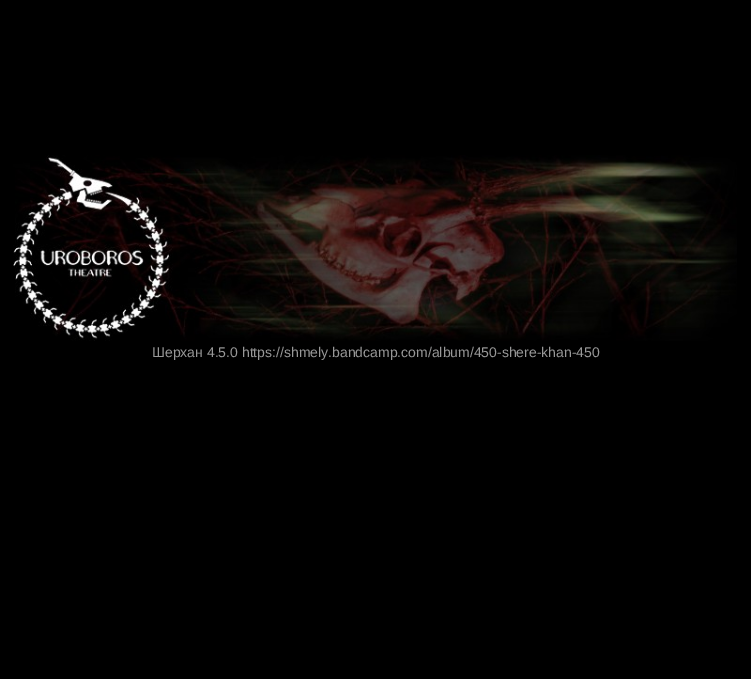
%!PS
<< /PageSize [751 679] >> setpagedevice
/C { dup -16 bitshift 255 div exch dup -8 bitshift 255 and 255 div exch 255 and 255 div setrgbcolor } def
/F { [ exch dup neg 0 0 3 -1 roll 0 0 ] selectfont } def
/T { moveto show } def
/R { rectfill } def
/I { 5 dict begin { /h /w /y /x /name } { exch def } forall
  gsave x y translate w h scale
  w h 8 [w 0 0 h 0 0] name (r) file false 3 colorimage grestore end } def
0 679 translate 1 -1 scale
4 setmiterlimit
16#000000 C
0 0 751 679 R
(1.rgb) 13 155 724 186 I
/LiberationSans-Regular 14 F
16#989898 C
(Шерхан 4.5.0 https://shmely.bandcamp.com/album/450-shere-khan-450) 152 357 T
showpage
